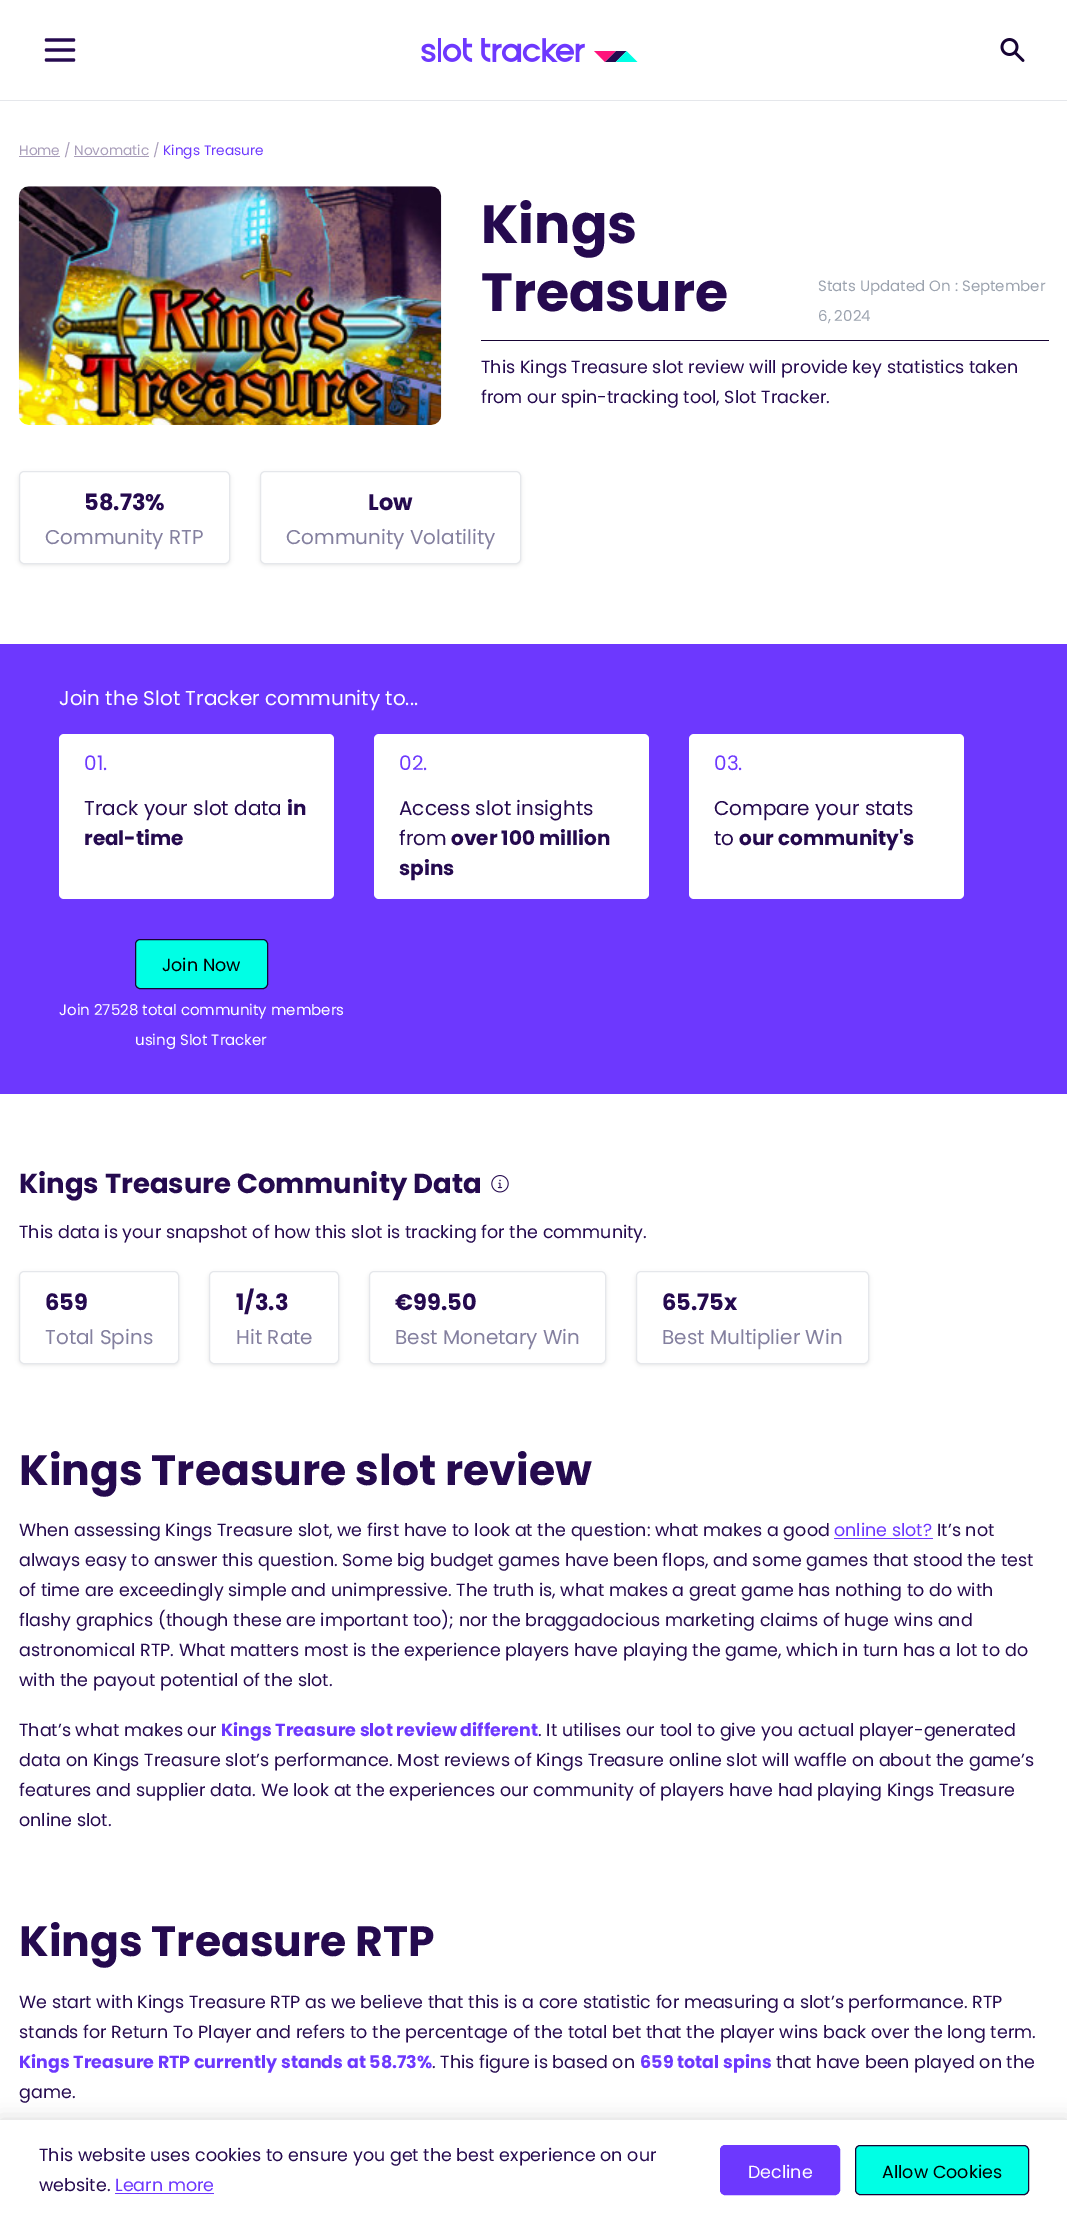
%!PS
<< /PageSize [1067 2220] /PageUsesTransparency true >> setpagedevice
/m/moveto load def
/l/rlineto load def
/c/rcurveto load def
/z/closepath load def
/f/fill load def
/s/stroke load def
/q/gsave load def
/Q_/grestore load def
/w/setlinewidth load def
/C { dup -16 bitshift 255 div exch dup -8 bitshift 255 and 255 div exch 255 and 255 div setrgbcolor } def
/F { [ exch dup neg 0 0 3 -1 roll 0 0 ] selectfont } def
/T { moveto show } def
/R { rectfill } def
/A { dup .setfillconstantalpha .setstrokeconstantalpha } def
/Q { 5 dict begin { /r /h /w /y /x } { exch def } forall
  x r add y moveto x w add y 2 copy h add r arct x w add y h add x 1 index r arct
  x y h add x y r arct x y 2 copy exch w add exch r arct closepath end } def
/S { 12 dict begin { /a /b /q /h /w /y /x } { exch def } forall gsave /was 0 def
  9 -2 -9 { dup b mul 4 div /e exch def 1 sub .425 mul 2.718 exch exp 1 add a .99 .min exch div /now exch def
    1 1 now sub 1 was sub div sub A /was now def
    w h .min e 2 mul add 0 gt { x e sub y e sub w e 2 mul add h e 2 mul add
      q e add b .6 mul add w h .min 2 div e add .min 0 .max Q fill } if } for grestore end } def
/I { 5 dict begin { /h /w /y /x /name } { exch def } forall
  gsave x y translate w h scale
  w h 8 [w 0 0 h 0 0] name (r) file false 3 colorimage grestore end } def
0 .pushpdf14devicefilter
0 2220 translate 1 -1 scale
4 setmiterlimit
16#FFFFFF C
0 0 1067 2220 R
16#E5E7EB C
0 100 1067 1 R
16#250A4F C
3.3 w
1 setlinecap
1 setlinejoin
46.5 40 m 27 0 l 46.5 50 m 27 0 l 46.5 60 m 27 0 l s
(1.rgb) 421 38 217 24 I
(2.rgb) 1000 38 25 24 I
16#A89DB9 C
19 156 41 1 R
/Poppins-Regular 13.75 F
(Home / Novomatic /) 19 155 T
16#6D38FE C
(Kings Treasure) 163 155 T
16#A89DB9 C
74 156 75 1 R
(3.rgb) 18 186 424 239 I
/Poppins-Bold 53.75 F
16#250A4F C
(Kings) 481 243 T
(Treasure) 481 311 T
/Poppins-Regular 15 F
16#9CA3AF C
(Stats Updated On : September) 818 291 T
(6, 2024) 818 321 T
16#160333 C
481 340 568 1 R
/Poppins-Regular 17.5 F
16#250A4F C
(This Kings Treasure slot review will provide key statistics taken) 481 373 T
(from our spin-tracking tool, Slot Tracker.) 481 403 T
q
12 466 m 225 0 l 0 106 l -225 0 l z 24 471 m 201 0 l 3 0 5 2 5 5 c 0 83 l 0 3 -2 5 -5 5 c -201 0 l -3 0 -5 -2 -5 -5 c 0 -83 l 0 -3 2 -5 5 -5 c z eoclip newpath
16#000000 C
19 473 211 92 5 2 .1 S
Q_
16#E5E7EB C
1 w
0 setlinecap
0 setlinejoin
19.5 471.5 210 92 4.5 Q s
/Poppins-Bold 22.5 F
16#250A4F C
(58.73%) 84 510 T
/Poppins-Regular 20 F
16#84809F C
(Community RTP) 45 544 T
q
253 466 m 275 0 l 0 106 l -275 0 l z 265 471 m 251 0 l 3 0 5 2 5 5 c 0 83 l 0 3 -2 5 -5 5 c -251 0 l -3 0 -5 -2 -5 -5 c 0 -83 l 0 -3 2 -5 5 -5 c z eoclip newpath
16#000000 C
260 473 261 92 5 2 .1 S
Q_
16#E5E7EB C
260.5 471.5 260 92 4.5 Q s
/Poppins-Bold 22.5 F
16#250A4F C
(Low) 368 510 T
/Poppins-Regular 20 F
16#84809F C
(Community Volatility) 286 544 T
16#6D38FE C
0 644 1067 450 R
16#FFFFFF C
(Join the Slot Tracker community to...) 59 705 T
59 734 275 165 5 Q f
16#6D38FE C
(01.) 84 770 T
16#250A4F C
(Track your slot data) 84 815 T
/Poppins-Bold 20 F
(in) 287 815 T
(real-time) 84 845 T
16#FFFFFF C
374 734 275 165 5 Q f
/Poppins-Regular 20 F
16#6D38FE C
(02.) 399 770 T
16#250A4F C
(Access slot insights) 399 815 T
(from) 399 845 T
/Poppins-Bold 20 F
(over 100 million) 451 845 T
(spins) 399 875 T
16#FFFFFF C
689 734 275 165 5 Q f
/Poppins-Regular 20 F
16#6D38FE C
(03.) 714 770 T
16#250A4F C
(Compare your stats) 714 815 T
(to) 714 845 T
/Poppins-Bold 20 F
(our community's) 739 845 T
16#00FFE5 C
135.5 939.5 132 49 4.5 Q q f Q_
16#160333 C
s
/Poppins-Regular 17.5 F
16#000000 C
(Join Now) 162 971 T
/Poppins-Regular 15 F
16#FFFFFF C
(Join 27528 total community members) 59 1015 T
(using Slot Tracker) 135 1045 T
/Poppins-Bold 27.5 F
16#250A4F C
(Kings Treasure Community Data) 19 1193 T
(4.rgb) 491 1175 18 18 I
/Poppins-Regular 17.5 F
(This data is your snapshot of how this slot is tracking for the community.) 19 1238 T
q
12 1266 m 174 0 l 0 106 l -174 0 l z 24 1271 m 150 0 l 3 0 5 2 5 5 c 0 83 l 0 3 -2 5 -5 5 c -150 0 l -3 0 -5 -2 -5 -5 c 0 -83 l 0 -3 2 -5 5 -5 c z eoclip newpath
16#000000 C
19 1273 160 92 5 2 .1 S
Q_
16#E5E7EB C
19.5 1271.5 159 92 4.5 Q s
/Poppins-Bold 22.5 F
16#250A4F C
(659) 45 1310 T
/Poppins-Regular 20 F
16#84809F C
(Total Spins) 45 1344 T
q
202 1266 m 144 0 l 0 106 l -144 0 l z 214 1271 m 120 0 l 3 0 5 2 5 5 c 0 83 l 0 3 -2 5 -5 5 c -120 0 l -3 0 -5 -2 -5 -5 c 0 -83 l 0 -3 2 -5 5 -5 c z eoclip newpath
16#000000 C
209 1273 130 92 5 2 .1 S
Q_
16#E5E7EB C
209.5 1271.5 129 92 4.5 Q s
/Poppins-Bold 22.5 F
16#250A4F C
(1/3.3) 236 1310 T
/Poppins-Regular 20 F
16#84809F C
(Hit Rate) 236 1344 T
q
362 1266 m 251 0 l 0 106 l -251 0 l z 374 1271 m 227 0 l 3 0 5 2 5 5 c 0 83 l 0 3 -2 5 -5 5 c -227 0 l -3 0 -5 -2 -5 -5 c 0 -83 l 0 -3 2 -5 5 -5 c z eoclip newpath
16#000000 C
369 1273 237 92 5 2 .1 S
Q_
16#E5E7EB C
369.5 1271.5 236 92 4.5 Q s
/Poppins-Bold 22.5 F
16#250A4F C
(€99.50) 395 1310 T
/Poppins-Regular 20 F
16#84809F C
(Best Monetary Win) 395 1344 T
q
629 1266 m 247 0 l 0 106 l -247 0 l z 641 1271 m 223 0 l 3 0 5 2 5 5 c 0 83 l 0 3 -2 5 -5 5 c -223 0 l -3 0 -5 -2 -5 -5 c 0 -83 l 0 -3 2 -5 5 -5 c z eoclip newpath
16#000000 C
636 1273 233 92 5 2 .1 S
Q_
16#E5E7EB C
636.5 1271.5 232 92 4.5 Q s
/Poppins-Bold 22.5 F
16#250A4F C
(65.75x) 662 1310 T
/Poppins-Regular 20 F
16#84809F C
(Best Multiplier Win) 662 1344 T
/Poppins-Bold 42.5 F
16#250A4F C
(Kings Treasure slot review) 19 1485 T
/Poppins-Regular 17.5 F
(When assessing Kings Treasure slot, we first have to look at the question: what makes a good) 19 1536 T
16#6D38FE C
(online slot?) 834 1536 T
834 1538 99 1 R
16#250A4F C
(It’s not) 937 1536 T
(always easy to answer this question. Some big budget games have been flops, and some games that stood the test) 19 1566 T
(of time are exceedingly simple and unimpressive. The truth is, what makes a great game has nothing to do with) 19 1596 T
(flashy graphics \(though these are important too\); nor the braggadocious marketing claims of huge wins and) 19 1626 T
(astronomical RTP. What matters most is the experience players have playing the game, which in turn has a lot to do) 19 1656 T
(with the payout potential of the slot.) 19 1686 T
(That’s what makes our) 19 1736 T
/Poppins-Bold 17.5 F
16#6D38FE C
(Kings Treasure slot review different) 221 1736 T
/Poppins-Regular 17.5 F
16#250A4F C
(. It utilises our tool to give you actual player-generated) 538 1736 T
(data on Kings Treasure slot’s performance. Most reviews of Kings Treasure online slot will waffle on about the game’s) 19 1766 T
(features and supplier data. We look at the experiences our community of players have had playing Kings Treasure) 19 1796 T
(online slot.) 19 1826 T
/Poppins-Bold 42.5 F
(Kings Treasure RTP) 19 1956 T
/Poppins-Regular 17.5 F
(We start with Kings Treasure RTP as we believe that this is a core statistic for measuring a slot’s performance. RTP) 19 2008 T
(stands for Return To Player and refers to the percentage of the total bet that the player wins back over the long term.) 19 2038 T
/Poppins-Bold 17.5 F
16#6D38FE C
(Kings Treasure RTP currently stands at 58.73%) 19 2068 T
/Poppins-Regular 17.5 F
16#250A4F C
(. This figure is based on) 432 2068 T
/Poppins-Bold 17.5 F
16#6D38FE C
(659 total spins) 640 2068 T
/Poppins-Regular 17.5 F
16#250A4F C
(that have been played on the) 776 2068 T
(game.) 19 2098 T
16#000000 C
0 2120 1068 100 0 10 .15 S
16#FFFFFF C
0 2120 1067 100 R
16#250A4F C
(This website uses cookies to ensure you get the best experience on our) 39 2161 T
(website.) 39 2191 T
16#6D38FE C
(Learn more) 115 2191 T
115 2193 99 1 R
720.5 2145.5 119 49 4.5 Q q f Q_
s
16#FFFFFF C
(Decline) 748 2178 T
16#00FFE5 C
855.5 2145.5 173 49 4.5 Q q f Q_
16#160333 C
s
16#000000 C
(Allow Cookies) 882 2178 T
.poppdf14devicefilter showpage
